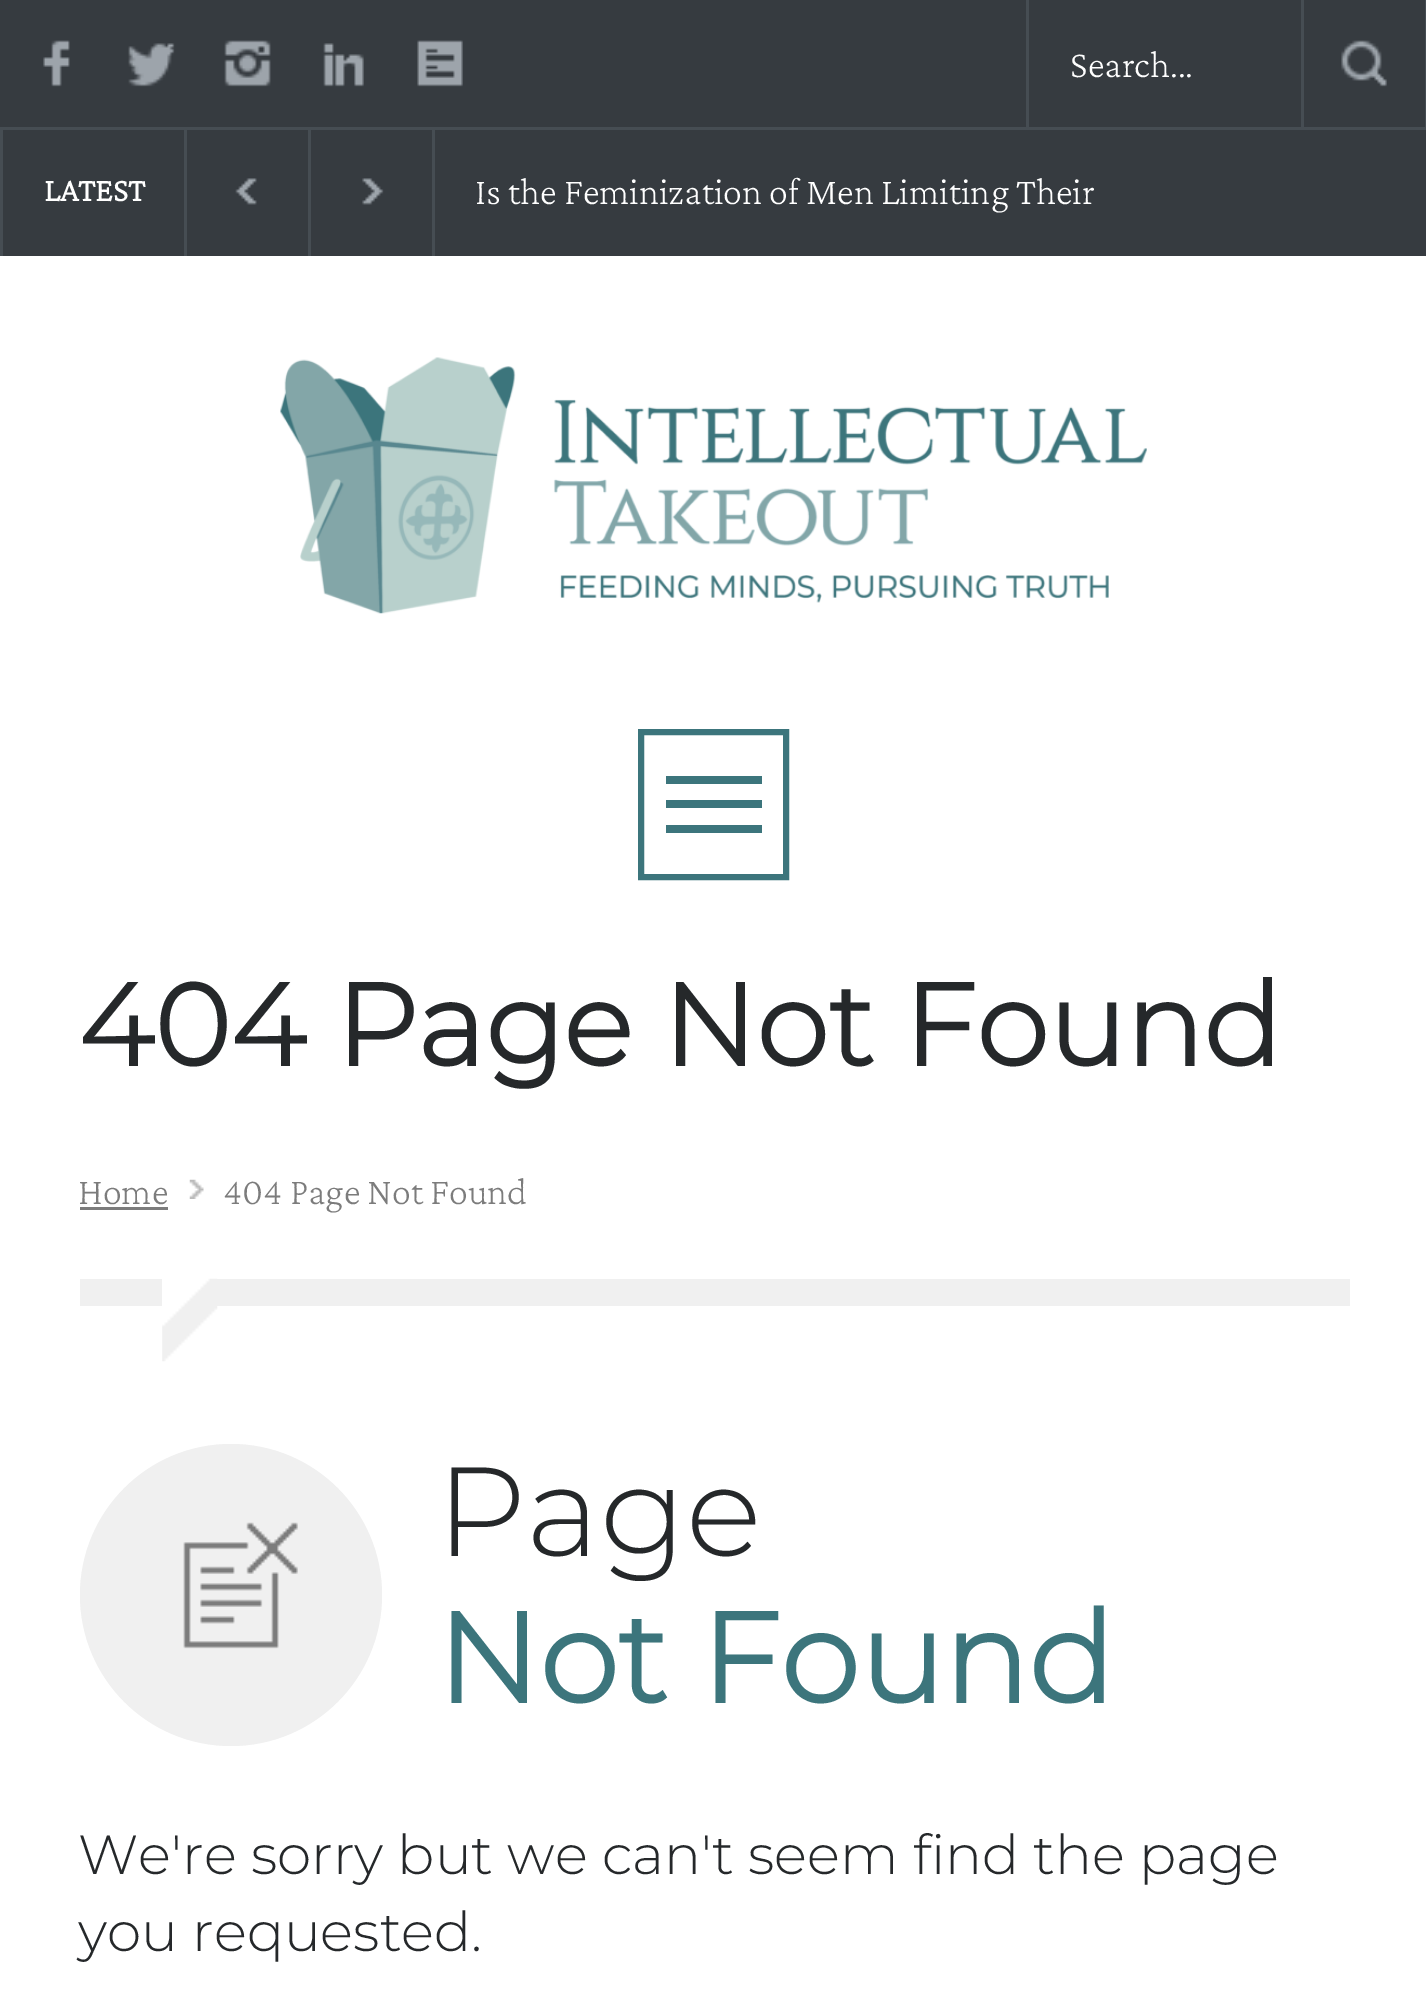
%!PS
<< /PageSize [1426 2000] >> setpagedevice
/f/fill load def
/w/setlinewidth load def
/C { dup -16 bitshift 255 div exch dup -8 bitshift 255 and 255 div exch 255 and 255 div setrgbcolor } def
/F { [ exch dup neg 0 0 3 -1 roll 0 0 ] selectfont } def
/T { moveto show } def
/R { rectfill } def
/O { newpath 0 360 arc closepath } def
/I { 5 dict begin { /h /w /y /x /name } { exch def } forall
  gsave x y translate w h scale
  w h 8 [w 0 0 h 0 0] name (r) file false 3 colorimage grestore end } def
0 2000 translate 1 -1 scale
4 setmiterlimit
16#FFFFFF C
0 0 1426 2000 R
16#363B40 C
0 0 1426 256 R
(1.rgb) 43 40 27 47 I
(2.rgb) 128 43 47 44 I
(3.rgb) 224 40 47 47 I
(4.rgb) 323 43 41 44 I
(5.rgb) 417 40 46 47 I
16#464D53 C
1425 0 1 127 R
1026 0 3 127 R
1301 0 3 127 R
/CrimsonPro-ExtraLight 38.5 F
16#FFFFFF C
(Search...) 1070 77 T
(6.rgb) 1341 40 46 47 I
16#464D53 C
0 127 1426 3 R
184 129 3 127 R
0 129 3 127 R
/CrimsonPro-Bold 33 F
16#FFFFFF C
(LATEST) 44 201 T
16#464D53 C
308 129 3 127 R
(7.rgb) 235 178 22 27 I
432 129 3 127 R
(8.rgb) 362 178 22 27 I
/CrimsonPro-ExtraLight 38.5 F
16#FFFFFF C
(Is the Feminization of Men Limiting Their) 475 204 T
(9.rgb) 280 357 867 257 I
16#3C757C C
6 w
641 732 145 145 rectstroke
666 776 96 8 R
666 800 96 8 R
666 825 96 8 R
/Montserrat-Bold 115.5 F
16#25282A C
(404 Page Not Found) 78 1066 T
/CrimsonPro-ExtraLight 38.5 F
16#7C7C7C C
(Home) 78 1204 T
80 1207 88 3 R
(10.rgb) 189 1179 15 20 I
(404 Page Not Found) 223 1204 T
16#F0F0F0 C
80 1279 82 27 R
(11.rgb) 162 1278 56 84 I
217 1279 1133 27 R
231 1595 151 O f
(12.rgb) 183 1522 115 127 I
/Montserrat-Thin 126.5 F
16#25282A C
(Page) 436 1556 T
/Montserrat-Bold 126.5 F
16#3C757C C
(Not Found) 436 1703 T
/Montserrat-Thin 55 F
16#25282A C
(We're sorry but we can't seem find the page) 78 1874 T
(you requested.) 78 1951 T
showpage
